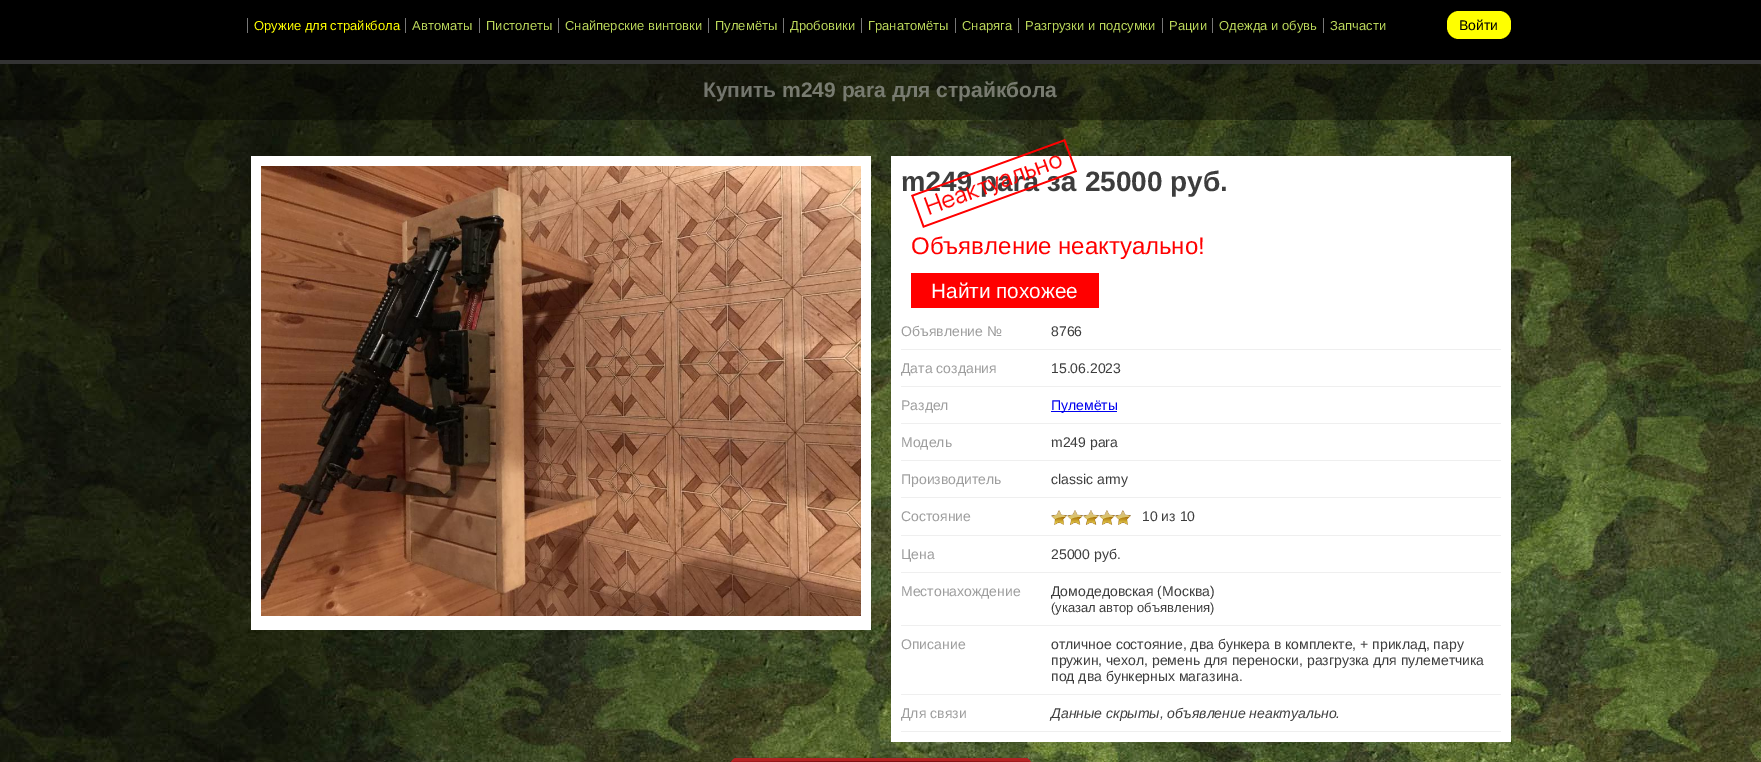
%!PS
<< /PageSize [1761 762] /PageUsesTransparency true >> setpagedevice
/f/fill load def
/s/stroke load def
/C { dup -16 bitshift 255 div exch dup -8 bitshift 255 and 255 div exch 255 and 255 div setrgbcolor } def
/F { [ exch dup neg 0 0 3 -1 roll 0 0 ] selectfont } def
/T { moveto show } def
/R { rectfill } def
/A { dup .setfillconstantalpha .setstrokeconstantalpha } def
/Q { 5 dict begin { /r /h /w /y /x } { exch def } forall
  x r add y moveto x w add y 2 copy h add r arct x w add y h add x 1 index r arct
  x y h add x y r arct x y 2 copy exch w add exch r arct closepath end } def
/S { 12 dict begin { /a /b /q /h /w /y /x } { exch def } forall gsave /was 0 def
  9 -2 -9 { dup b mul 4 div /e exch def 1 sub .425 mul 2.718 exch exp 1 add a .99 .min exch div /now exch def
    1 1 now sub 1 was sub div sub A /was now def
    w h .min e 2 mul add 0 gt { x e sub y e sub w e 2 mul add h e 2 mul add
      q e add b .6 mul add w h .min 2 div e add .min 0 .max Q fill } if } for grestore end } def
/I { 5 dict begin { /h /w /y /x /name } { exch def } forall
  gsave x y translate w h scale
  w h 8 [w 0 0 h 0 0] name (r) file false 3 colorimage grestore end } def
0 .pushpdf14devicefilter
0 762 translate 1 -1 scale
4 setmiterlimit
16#FFFFFF C
0 0 1761 762 R
(1.rgb) 0 64 1761 698 I
16#000000 C
0 0 1761 60 R
16#333333 C
0 60 1761 4 R
/LiberationSans-Regular 13 F
16#FFFF00 C
(Оружие для страйкбола) 254 30 T
16#777777 C
247 18 1 15 R
16#BAD65A C
(Автоматы) 412 30 T
16#777777 C
405 18 1 15 R
16#BAD65A C
(Пистолеты) 486 30 T
16#777777 C
479 18 1 15 R
16#BAD65A C
(Снайперские винтовки) 565 30 T
16#777777 C
558 18 1 15 R
16#BAD65A C
(Пулемёты) 715 30 T
16#777777 C
708 18 1 15 R
16#BAD65A C
(Дробовики) 790 30 T
16#777777 C
783 18 1 15 R
16#BAD65A C
(Гранатомёты) 868 30 T
16#777777 C
861 18 1 15 R
16#BAD65A C
(Снаряга) 962 30 T
16#777777 C
955 18 1 15 R
16#BAD65A C
(Разгрузки и подсумки) 1025 30 T
16#777777 C
1018 18 1 15 R
16#BAD65A C
(Рации) 1169 30 T
16#777777 C
1162 18 1 15 R
16#BAD65A C
(Одежда и обувь) 1219 30 T
16#777777 C
1212 18 1 15 R
16#BAD65A C
(Запчасти) 1330 30 T
16#777777 C
1323 18 1 15 R
16#FFFF00 C
1447 11 64 28 12 Q f
/LiberationSans-Regular 14 F
16#000000 C
(Войти) 1459 30 T
0.4 A
0 64 1761 56 R
/LiberationSans-Bold 21 F
1 A
16#73756D C
(Купить) 703 97 T
16#787B70 C
(m249 para для страйкбола) 782 97 T
16#FFFFFF C
251 156 620 474 R
(2.rgb) 261 166 600 450 I
891 156 620 586 R
/LiberationSans-Bold 28 F
16#3D3D3D C
(m249 para за 25000 руб.) 901 191 T
(3.rgb) 911 138 166 90 I
/LiberationSans-Regular 24 F
16#FF0000 C
(Объявление неактуально!) 911 254 T
911 273 188 35 R
/LiberationSans-Regular 20.75 F
16#FFFFFF C
(Найти похожее) 931 298 T
16#EFEFEF C
901 349 600 1 R
/LiberationSans-Regular 14 F
16#9D9D9D C
(Объявление №) 901 336 T
16#3D3D3D C
(8766) 1051 336 T
16#EFEFEF C
901 386 600 1 R
16#9D9D9D C
(Дата создания) 901 373 T
16#3D3D3D C
(15.06.2023) 1051 373 T
16#EFEFEF C
901 423 600 1 R
16#9D9D9D C
(Раздел) 901 410 T
16#0000EE C
1051 411 66 1 R
(Пулемёты) 1051 410 T
16#EFEFEF C
901 460 600 1 R
16#9D9D9D C
(Модель) 901 447 T
16#3D3D3D C
(m249 para) 1051 447 T
16#EFEFEF C
901 497 600 1 R
16#9D9D9D C
(Производитель) 901 484 T
16#3D3D3D C
(classic army) 1051 484 T
16#EFEFEF C
901 535 600 1 R
16#9D9D9D C
(Состояние) 901 521 T
(4.rgb) 1051 510 80 15 I
16#3D3D3D C
(10 из 10) 1142 521 T
16#EFEFEF C
901 572 600 1 R
16#9D9D9D C
(Цена) 901 559 T
16#3D3D3D C
(25000 руб.) 1051 559 T
16#EFEFEF C
901 625 600 1 R
16#9D9D9D C
(Местонахождение) 901 596 T
16#3D3D3D C
(Домодедовская \(Москва\)) 1051 596 T
/LiberationSans-Regular 13 F
(\(указал автор объявления\)) 1051 612 T
16#EFEFEF C
901 694 600 1 R
/LiberationSans-Regular 14 F
16#9D9D9D C
(Описание) 901 649 T
16#3D3D3D C
(отличное состояние, два бункера в комплекте, + приклад, пару) 1051 649 T
(пружин, чехол, ремень для переноски, разгрузка для пулеметчика) 1051 665 T
(под два бункерных магазина.) 1051 681 T
16#EFEFEF C
901 731 600 1 R
16#9D9D9D C
(Для связи) 901 718 T
/LiberationSans-Italic 14 F
16#3D3D3D C
(Данные скрыты, объявление неактуально.) 1051 718 T
16#000000 C
731 759 300 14 6 1.5 .6 S
16#B22222 C
731 758 300 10 6 Q f
(5.rgb) 732 761 299 1 I
731.5 758.5 299 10 5.5 Q s
.poppdf14devicefilter showpage
